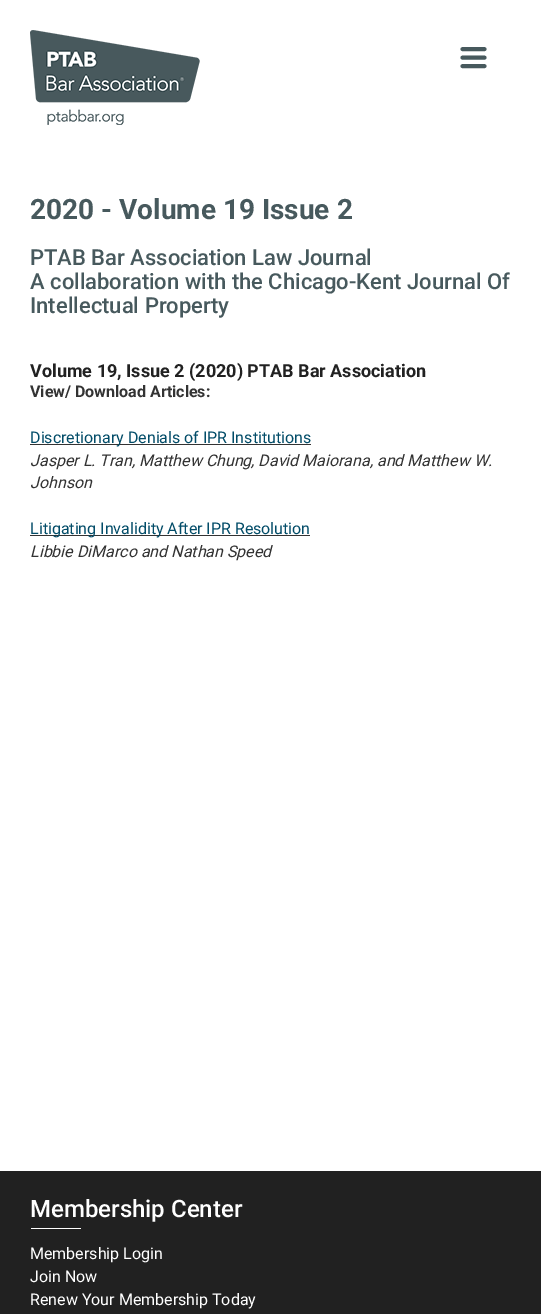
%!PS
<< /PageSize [541 1314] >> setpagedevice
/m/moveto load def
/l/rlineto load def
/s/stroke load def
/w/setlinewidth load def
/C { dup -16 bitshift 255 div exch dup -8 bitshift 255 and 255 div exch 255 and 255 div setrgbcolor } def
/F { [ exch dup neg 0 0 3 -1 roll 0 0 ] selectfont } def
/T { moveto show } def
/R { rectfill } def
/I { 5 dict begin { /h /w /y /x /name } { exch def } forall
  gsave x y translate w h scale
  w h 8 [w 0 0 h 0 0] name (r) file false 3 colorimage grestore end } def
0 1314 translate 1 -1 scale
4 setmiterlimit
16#FFFFFF C
0 0 541 1314 R
(1.rgb) 30 30 170 95 I
16#47595D C
3.9 w
1 setlinecap
462.5 49 m 22 0 l 462.5 57.5 m 22 0 l 462.5 66 m 22 0 l s
/Roboto-Bold 28 F
(2020 - Volume 19 Issue 2) 30 219 T
/Roboto-Medium 22 F
(PTAB Bar Association Law Journal) 30 265 T
(A collaboration with the Chicago-Kent Journal Of) 30 289 T
(Intellectual Property) 30 313 T
/Roboto-Bold 18 F
16#212121 C
(Volume 19, Issue 2 \(2020\) PTAB Bar Association) 30 377 T
/Roboto-Bold 16 F
16#333333 C
(View/ Download Articles:) 30 397 T
30 444 281 1 R
/Roboto-Regular 16 F
16#024C68 C
(Discretionary Denials of IPR Institutions) 30 443 T
/Roboto-Italic 16 F
16#333333 C
(Jasper L. Tran, Matthew Chung, David Maiorana, and Matthew W.) 30 466 T
(Johnson) 30 488 T
30 535 280 1 R
/Roboto-Regular 16 F
16#024C68 C
(Litigating Invalidity After IPR Resolution) 30 534 T
/Roboto-Italic 16 F
16#333333 C
(Libbie DiMarco and Nathan Speed) 30 557 T
16#212121 C
0 1171 541 143 R
/Roboto-Medium 24 F
16#FFFFFF C
(Membership Center) 30 1217 T
31 1228 50 1 R
/Roboto-Regular 16 F
(Membership Login) 30 1259 T
(Join Now) 30 1282 T
(Renew Your Membership Today) 30 1305 T
showpage
